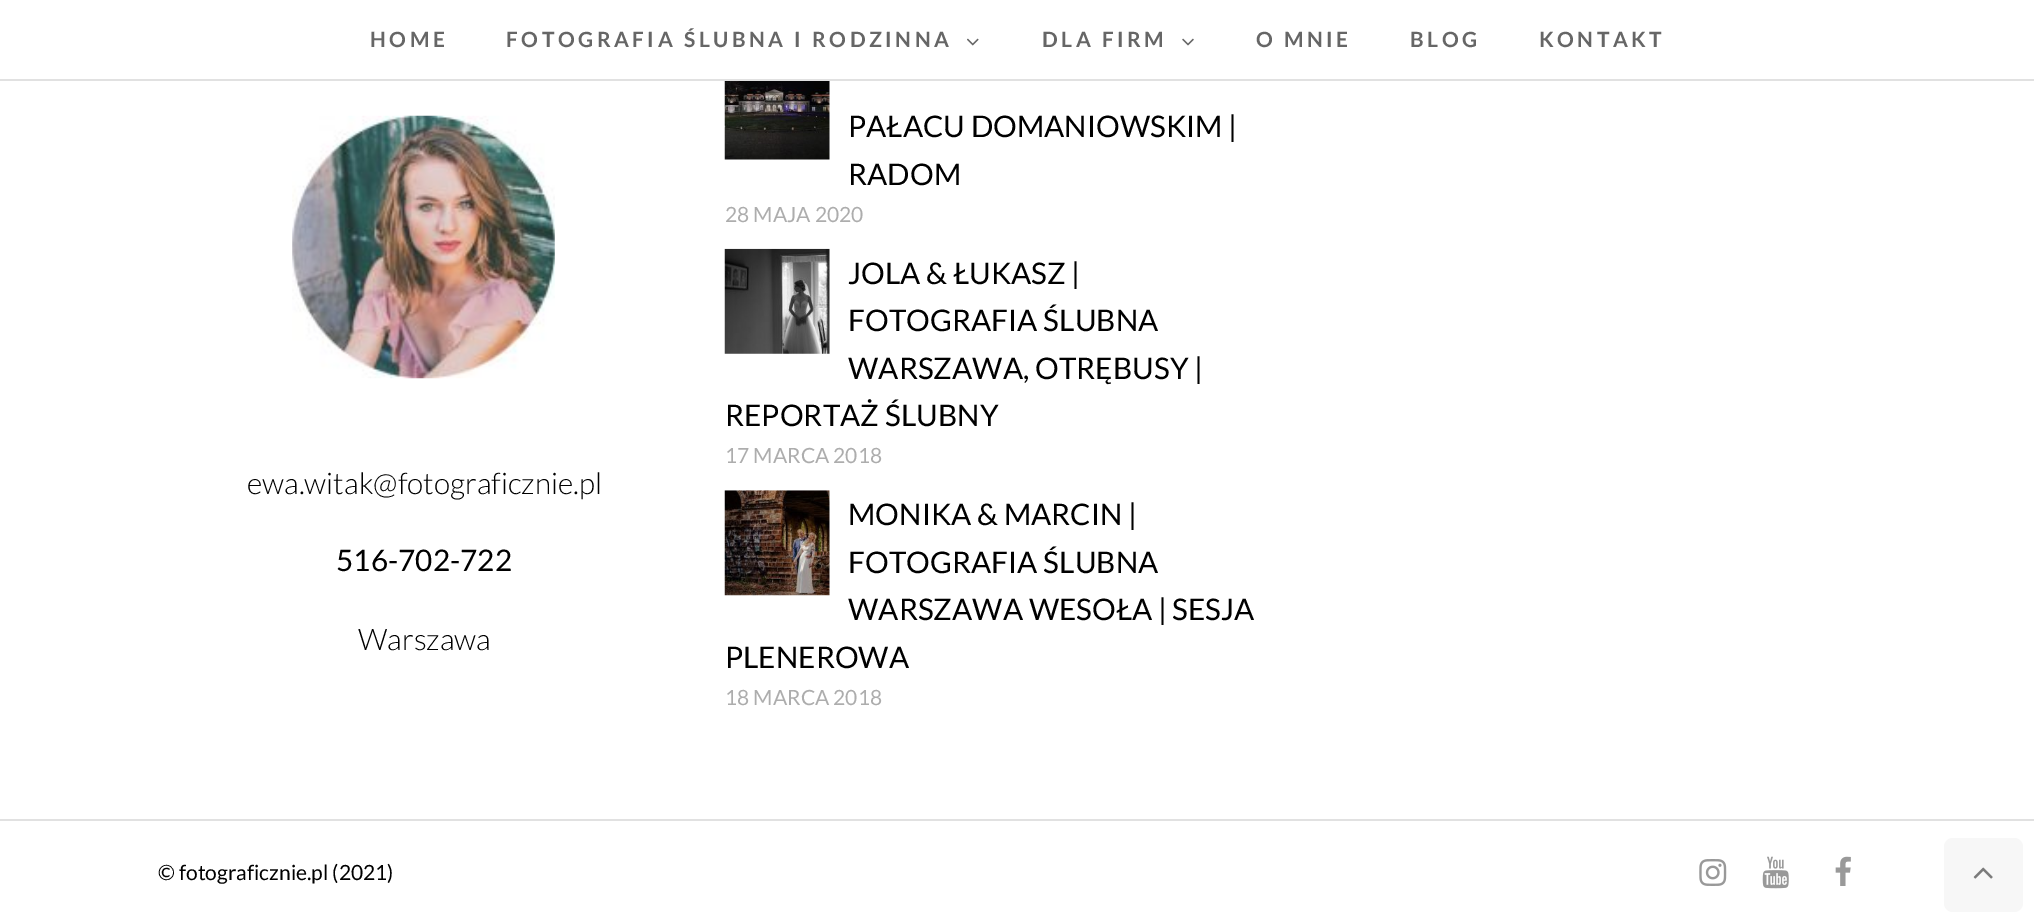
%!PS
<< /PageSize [2034 923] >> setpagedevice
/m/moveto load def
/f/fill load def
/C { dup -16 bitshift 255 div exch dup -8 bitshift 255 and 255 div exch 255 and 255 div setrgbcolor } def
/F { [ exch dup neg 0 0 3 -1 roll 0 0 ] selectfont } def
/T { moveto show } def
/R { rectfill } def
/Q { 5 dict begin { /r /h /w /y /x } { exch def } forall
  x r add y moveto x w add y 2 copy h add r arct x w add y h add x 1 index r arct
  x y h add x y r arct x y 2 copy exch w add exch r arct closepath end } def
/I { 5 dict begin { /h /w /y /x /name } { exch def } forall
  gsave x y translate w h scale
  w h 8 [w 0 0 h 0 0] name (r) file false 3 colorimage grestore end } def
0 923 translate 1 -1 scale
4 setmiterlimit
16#FFFFFF C
0 0 2034 923 R
16#E1E1E1 C
0 79 2034 2 R
/Lato-Bold 21 F
16#666666 C
370 47 m 3.5 0 (HOME) ashow
506 47 m 3.5 0 (FOTOGRAFIA ŚLUBNA I RODZINNA) ashow
(1.rgb) 967 38 12 8 I
1042 47 m 3.5 0 (DLA FIRM) ashow
(2.rgb) 1182 38 12 8 I
1256 47 m 3.5 0 (O MNIE) ashow
1410 47 m 3.5 0 (BLOG) ashow
1539 47 m 3.5 0 (KONTAKT) ashow
(3.rgb) 292 115 263 264 I
/Lato-Light 29.75 F
16#000000 C
(ewa.witak@fotograficznie.pl) 247 494 T
/Lato-Regular 29.75 F
(516-702-722) 336 571 T
/Lato-Light 29.75 F
(Warszawa) 358 650 T
(4.rgb) 724 81 106 79 I
/Lato-Regular 29.75 F
(PAŁACU DOMANIOWSKIM |) 848 137 T
(RADOM) 848 185 T
/Lato-Regular 21 F
16#ADADAD C
(28 MAJA 2020) 725 222 T
(5.rgb) 724 248 106 106 I
/Lato-Regular 29.75 F
16#000000 C
(JOLA & ŁUKASZ |) 848 284 T
(FOTOGRAFIA ŚLUBNA) 848 331 T
(WARSZAWA, OTRĘBUSY |) 848 379 T
(REPORTAŻ ŚLUBNY) 725 426 T
/Lato-Regular 21 F
16#ADADAD C
(17 MARCA 2018) 725 463 T
(6.rgb) 724 490 106 106 I
/Lato-Regular 29.75 F
16#000000 C
(MONIKA & MARCIN |) 848 525 T
(FOTOGRAFIA ŚLUBNA) 848 573 T
(WARSZAWA WESOŁA | SESJA) 848 620 T
(PLENEROWA) 725 668 T
/Lato-Regular 21 F
16#ADADAD C
(18 MARCA 2018) 725 705 T
16#E1E1E1 C
0 819 2034 2 R
16#000000 C
(© fotograficznie.pl \(2021\)) 158 880 T
(7.rgb) 1699 859 28 27 I
(8.rgb) 1762 856 27 33 I
(9.rgb) 1835 856 16 30 I
16#F7F7F7 C
1944 838 79 74 9 Q f
(10.rgb) 1973 867 20 12 I
showpage
